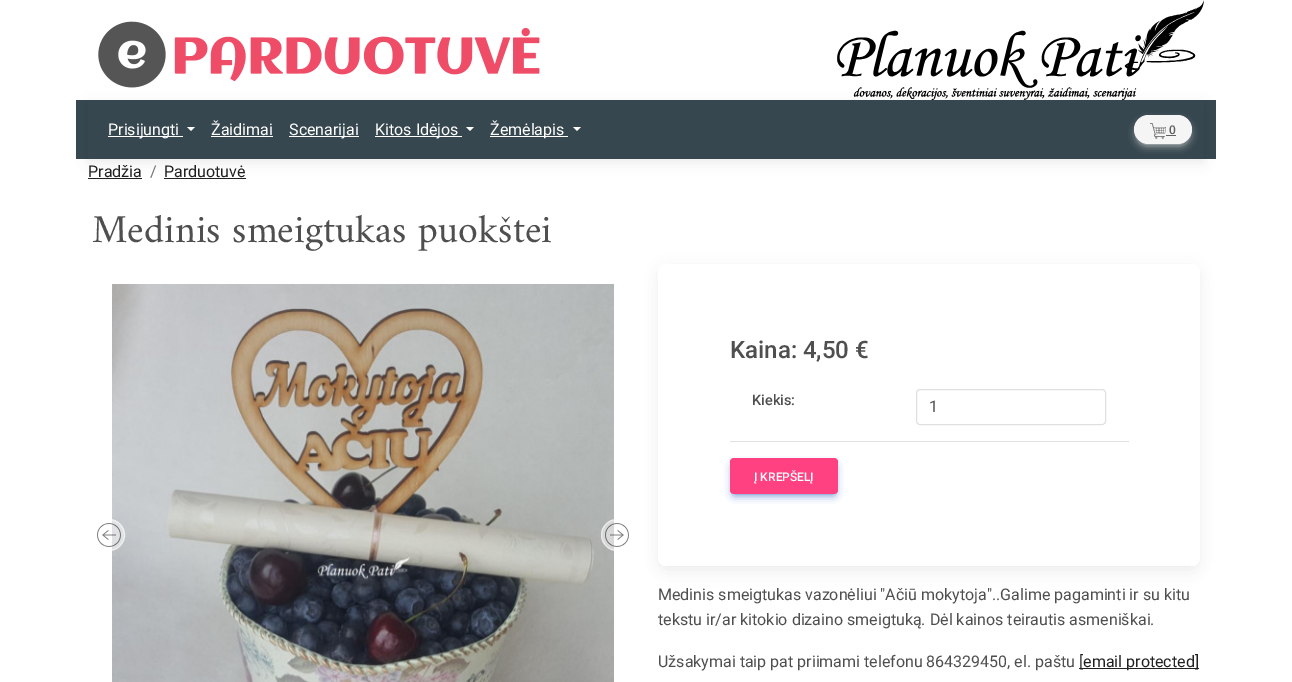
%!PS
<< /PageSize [1292 682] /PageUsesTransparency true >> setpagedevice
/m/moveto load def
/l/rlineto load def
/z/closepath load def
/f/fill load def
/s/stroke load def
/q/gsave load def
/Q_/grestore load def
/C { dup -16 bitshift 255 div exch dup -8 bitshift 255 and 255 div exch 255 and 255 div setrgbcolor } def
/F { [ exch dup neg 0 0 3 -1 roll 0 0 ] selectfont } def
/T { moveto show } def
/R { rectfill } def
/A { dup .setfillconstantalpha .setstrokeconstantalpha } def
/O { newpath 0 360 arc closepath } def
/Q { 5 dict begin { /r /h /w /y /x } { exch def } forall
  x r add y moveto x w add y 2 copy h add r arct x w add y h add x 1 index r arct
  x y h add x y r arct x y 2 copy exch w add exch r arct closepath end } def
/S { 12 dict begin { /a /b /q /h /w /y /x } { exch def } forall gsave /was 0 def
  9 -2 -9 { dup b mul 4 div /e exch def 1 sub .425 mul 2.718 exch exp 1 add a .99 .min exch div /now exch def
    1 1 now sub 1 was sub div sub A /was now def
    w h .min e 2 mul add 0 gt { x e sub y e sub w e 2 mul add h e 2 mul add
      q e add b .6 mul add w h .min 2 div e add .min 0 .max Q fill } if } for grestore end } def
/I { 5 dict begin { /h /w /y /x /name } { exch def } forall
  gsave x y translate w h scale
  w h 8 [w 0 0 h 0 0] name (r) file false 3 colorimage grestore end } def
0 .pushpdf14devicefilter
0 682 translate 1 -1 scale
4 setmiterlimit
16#FFFFFF C
0 0 1292 682 R
(1.rgb) 98 21 442 67 I
(2.rgb) 837 0 367 100 I
16#37474F C
76 100 1140 59 R
16#212121 C
88 178 54 1 R
164 178 82 1 R
q
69 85 m 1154 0 l 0 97 l -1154 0 l z 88 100 m 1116 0 l 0 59 l -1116 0 l z eoclip newpath
16#000000 C
88 104 1116 59 0 6 .07 S
Q_
16#FFFFFF C
108 136 75 1 R
/Roboto-Regular 16 F
(Prisijungti) 108 135 T
187 127 m 8 0 l -4 4 l z f
(Žaidimai) 211 135 T
211 136 62 1 R
289 136 70 1 R
(Scenarijai) 289 135 T
375 136 87 1 R
(Kitos Idėjos) 375 135 T
466 127 m 8 0 l -4 4 l z f
490 136 78 1 R
(Žemėlapis) 490 135 T
573 127 m 8 0 l -4 4 l z f
16#F6F6F6 C
1138 123 50 21 10.5 4.5 1 S
16#F5F5F5 C
1134 115 58 29 14.5 Q f
(3.rgb) 1150 123 16 16 I
/Roboto-Medium 12 F
16#616161 C
(0) 1169 134 T
1166 135 10 1 R
/Roboto-Regular 16 F
16#212121 C
(Pradžia) 88 177 T
16#737373 C
(/) 150 177 T
16#212121 C
(Parduotuvė) 164 177 T
/Amiri-Regular 40 F
16#4F4F4F C
(Medinis smeigtukas puokštei) 92 242 T
(5.rgb) 112 284 502 398 I
0.5 A
16#FFFFFF C
109 535 16 O f
109 535 15.5 O s
1 A
(4.rgb) 97 523 24 24 I
16#000000 C
660 276 538 298 6 10 .04 S
0.5 A
16#FFFFFF C
617 535 16 O f
617 535 15.5 O s
1 A
(6.rgb) 605 523 24 24 I
16#000000 C
661 269 536 296 5 7.5 .07 S
16#FFFFFF C
658 264 542 302 8 Q f
/Roboto-Medium 24 F
16#4F4F4F C
(Kaina: 4,50 €) 730 358 T
/Roboto-Medium 14.5 F
(Kiekis:) 752 405 T
16#E0E0E0 C
730 441 399 1 R
916.5 389.5 189 35 3.5 Q s
/Roboto-Regular 16 F
16#4F4F4F C
(1) 929 412 T
16#386BC0 C
734 466 100 28 0 4.5 1 S
16#FF4081 C
730 458 108 36 4 Q f
/Roboto-Medium 12 F
16#FFFFFF C
(Į KREPŠELĮ) 754 481 T
/Roboto-Regular 16 F
16#4F4F4F C
(Medinis smeigtukas vazonėliui "Ačiū mokytoja"..Galime pagaminti ir su kitu) 658 600 T
(tekstu ir/ar kitokio dizaino smeigtuką. Dėl kainos teirautis asmeniškai.) 658 625 T
(Užsakymai taip pat priimami telefonu 864329450, el. paštu) 658 667 T
16#212121 C
1079 668 120 1 R
([email protected]) 1079 667 T
.poppdf14devicefilter showpage
